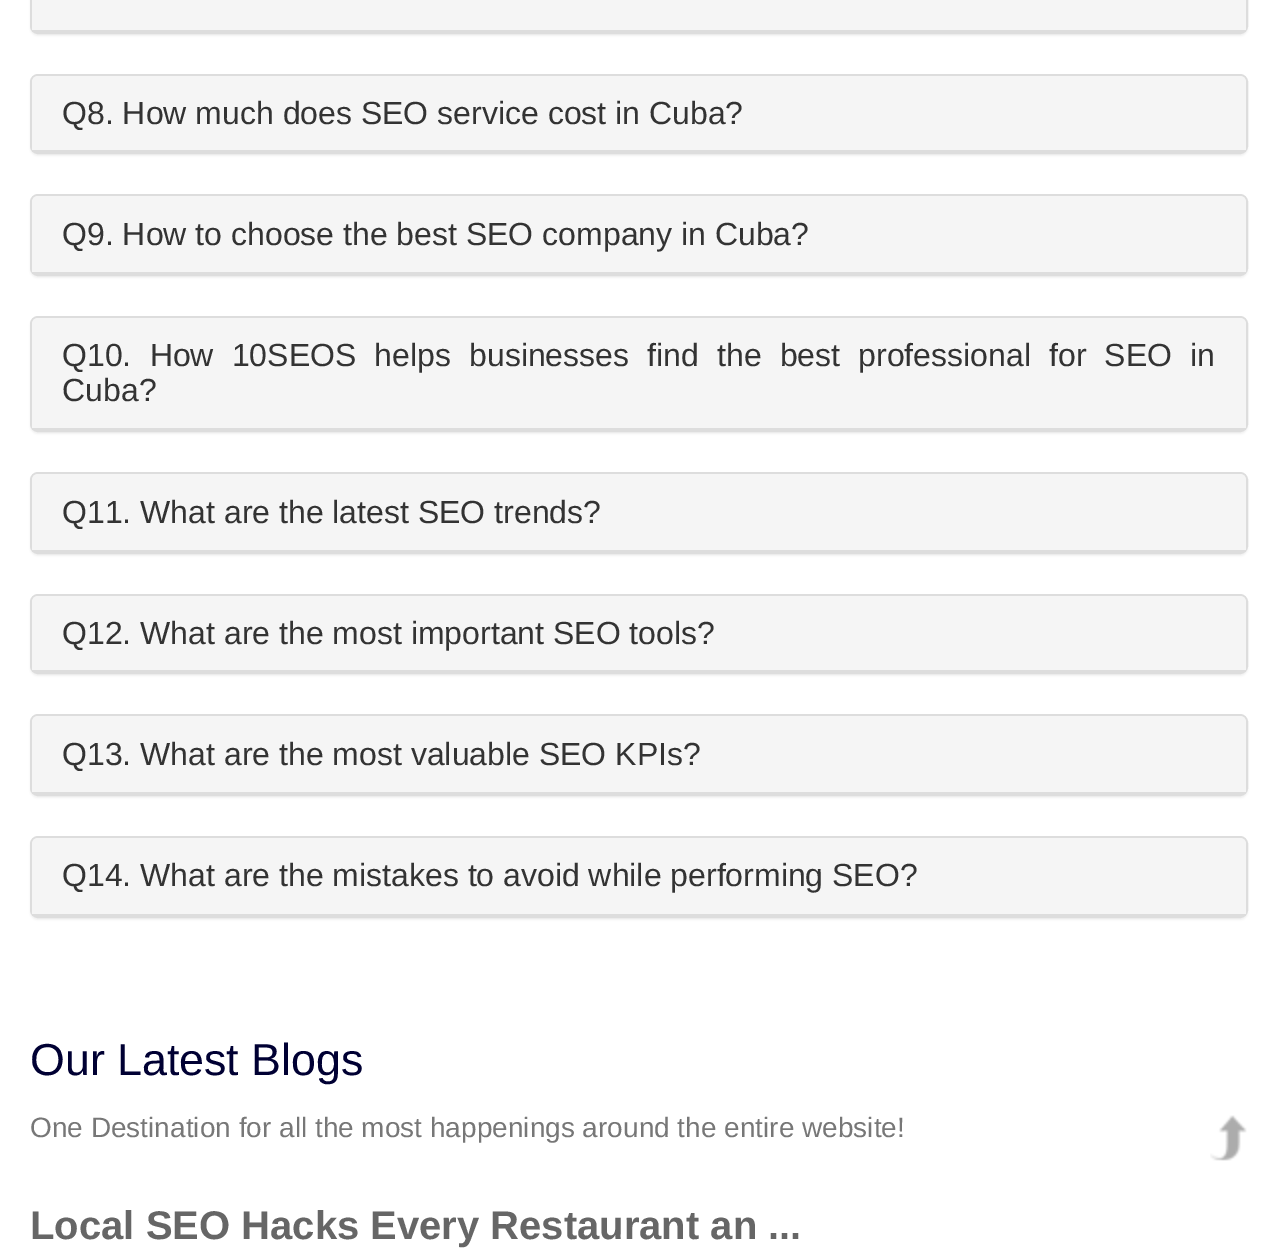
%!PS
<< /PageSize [1278 1260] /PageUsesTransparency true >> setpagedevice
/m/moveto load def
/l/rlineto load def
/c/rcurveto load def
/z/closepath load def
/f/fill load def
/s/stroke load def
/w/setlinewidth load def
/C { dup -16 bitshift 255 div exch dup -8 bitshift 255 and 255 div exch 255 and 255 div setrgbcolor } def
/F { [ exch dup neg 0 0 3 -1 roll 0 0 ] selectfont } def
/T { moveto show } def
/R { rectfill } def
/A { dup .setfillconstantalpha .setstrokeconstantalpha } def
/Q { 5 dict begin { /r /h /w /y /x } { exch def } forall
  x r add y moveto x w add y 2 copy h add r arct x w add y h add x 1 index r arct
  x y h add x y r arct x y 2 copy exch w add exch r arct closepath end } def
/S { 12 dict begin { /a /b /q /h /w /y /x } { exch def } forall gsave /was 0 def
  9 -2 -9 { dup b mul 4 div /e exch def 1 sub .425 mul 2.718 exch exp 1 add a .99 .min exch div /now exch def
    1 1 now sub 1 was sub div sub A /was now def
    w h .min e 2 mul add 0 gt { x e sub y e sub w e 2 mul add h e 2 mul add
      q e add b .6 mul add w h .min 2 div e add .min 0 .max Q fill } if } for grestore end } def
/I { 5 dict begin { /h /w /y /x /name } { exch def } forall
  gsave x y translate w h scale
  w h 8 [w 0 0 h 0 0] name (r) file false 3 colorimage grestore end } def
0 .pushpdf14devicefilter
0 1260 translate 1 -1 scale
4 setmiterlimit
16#FFFFFF C
0 0 1278 1260 R
16#000000 C
30 -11 1218 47 8 1 .05 S
16#DDDDDD C
2 w
31 -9 1216 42 7 Q s
16#F5F5F5 C
32 0 1214 30 R
16#DDDDDD C
32 30 1214 2 R
16#000000 C
30 76 1218 80 8 1 .05 S
16#DDDDDD C
31 75 1216 78 7 Q s
16#F5F5F5 C
38 76 m 1202 0 l 3.5 0 6 2.5 6 6 c 0 70 l -1214 0 l 0 -70 l 0 -3.5 2.5 -6 6 -6 c z f
16#DDDDDD C
32 150 1214 2 R
/LiberationSans-Regular 32 F
16#333333 C
(Q8. How much does SEO service cost in Cuba?) 62 124 T
16#000000 C
30 196 1218 82 8 1 .05 S
16#DDDDDD C
31 195 1216 80 7 Q s
16#F5F5F5 C
38 196 m 1202 0 l 3.5 0 6 2.5 6 6 c 0 72 l -1214 0 l 0 -72 l 0 -3.5 2.5 -6 6 -6 c z f
16#DDDDDD C
32 272 1214 2 R
16#333333 C
(Q9. How to choose the best SEO company in Cuba?) 62 245 T
16#000000 C
30 318 1218 116 8 1 .05 S
16#DDDDDD C
31 317 1216 114 7 Q s
16#F5F5F5 C
38 318 m 1202 0 l 3.5 0 6 2.5 6 6 c 0 106 l -1214 0 l 0 -106 l 0 -3.5 2.5 -6 6 -6 c z f
16#DDDDDD C
32 428 1214 2 R
16#333333 C
62 366 m 9.25 0 32 (Q10. How 10SEOS helps businesses find the best professional for SEO in) widthshow
(Cuba?) 62 401 T
16#000000 C
30 474 1218 82 8 1 .05 S
16#DDDDDD C
31 473 1216 80 7 Q s
16#F5F5F5 C
38 474 m 1202 0 l 3.5 0 6 2.5 6 6 c 0 72 l -1214 0 l 0 -72 l 0 -3.5 2.5 -6 6 -6 c z f
16#DDDDDD C
32 550 1214 2 R
16#333333 C
(Q11. What are the latest SEO trends?) 62 523 T
16#000000 C
30 596 1218 80 8 1 .05 S
16#DDDDDD C
31 595 1216 78 7 Q s
16#F5F5F5 C
38 596 m 1202 0 l 3.5 0 6 2.5 6 6 c 0 70 l -1214 0 l 0 -70 l 0 -3.5 2.5 -6 6 -6 c z f
16#DDDDDD C
32 670 1214 2 R
16#333333 C
(Q12. What are the most important SEO tools?) 62 644 T
16#000000 C
30 716 1218 82 8 1 .05 S
16#DDDDDD C
31 715 1216 80 7 Q s
16#F5F5F5 C
38 716 m 1202 0 l 3.5 0 6 2.5 6 6 c 0 72 l -1214 0 l 0 -72 l 0 -3.5 2.5 -6 6 -6 c z f
16#DDDDDD C
32 792 1214 2 R
16#333333 C
(Q13. What are the most valuable SEO KPIs?) 62 765 T
16#000000 C
30 838 1218 82 8 1 .05 S
16#DDDDDD C
31 837 1216 80 7 Q s
16#F5F5F5 C
38 838 m 1202 0 l 3.5 0 6 2.5 6 6 c 0 72 l -1214 0 l 0 -72 l 0 -3.5 2.5 -6 6 -6 c z f
16#DDDDDD C
32 914 1214 2 R
16#333333 C
(Q14. What are the mistakes to avoid while performing SEO?) 62 886 T
/LiberationSans-Regular 44.75 F
16#000033 C
(Our Latest Blogs) 30 1075 T
/LiberationSans-Regular 28 F
16#777777 C
(One Destination for all the most happenings around the entire website!) 30 1137 T
/LiberationSans-Bold 40 F
16#666666 C
(Local SEO Hacks Every Restaurant an ...) 30 1239 T
(1.rgb) 1210 1115 37 46 I
.poppdf14devicefilter showpage
